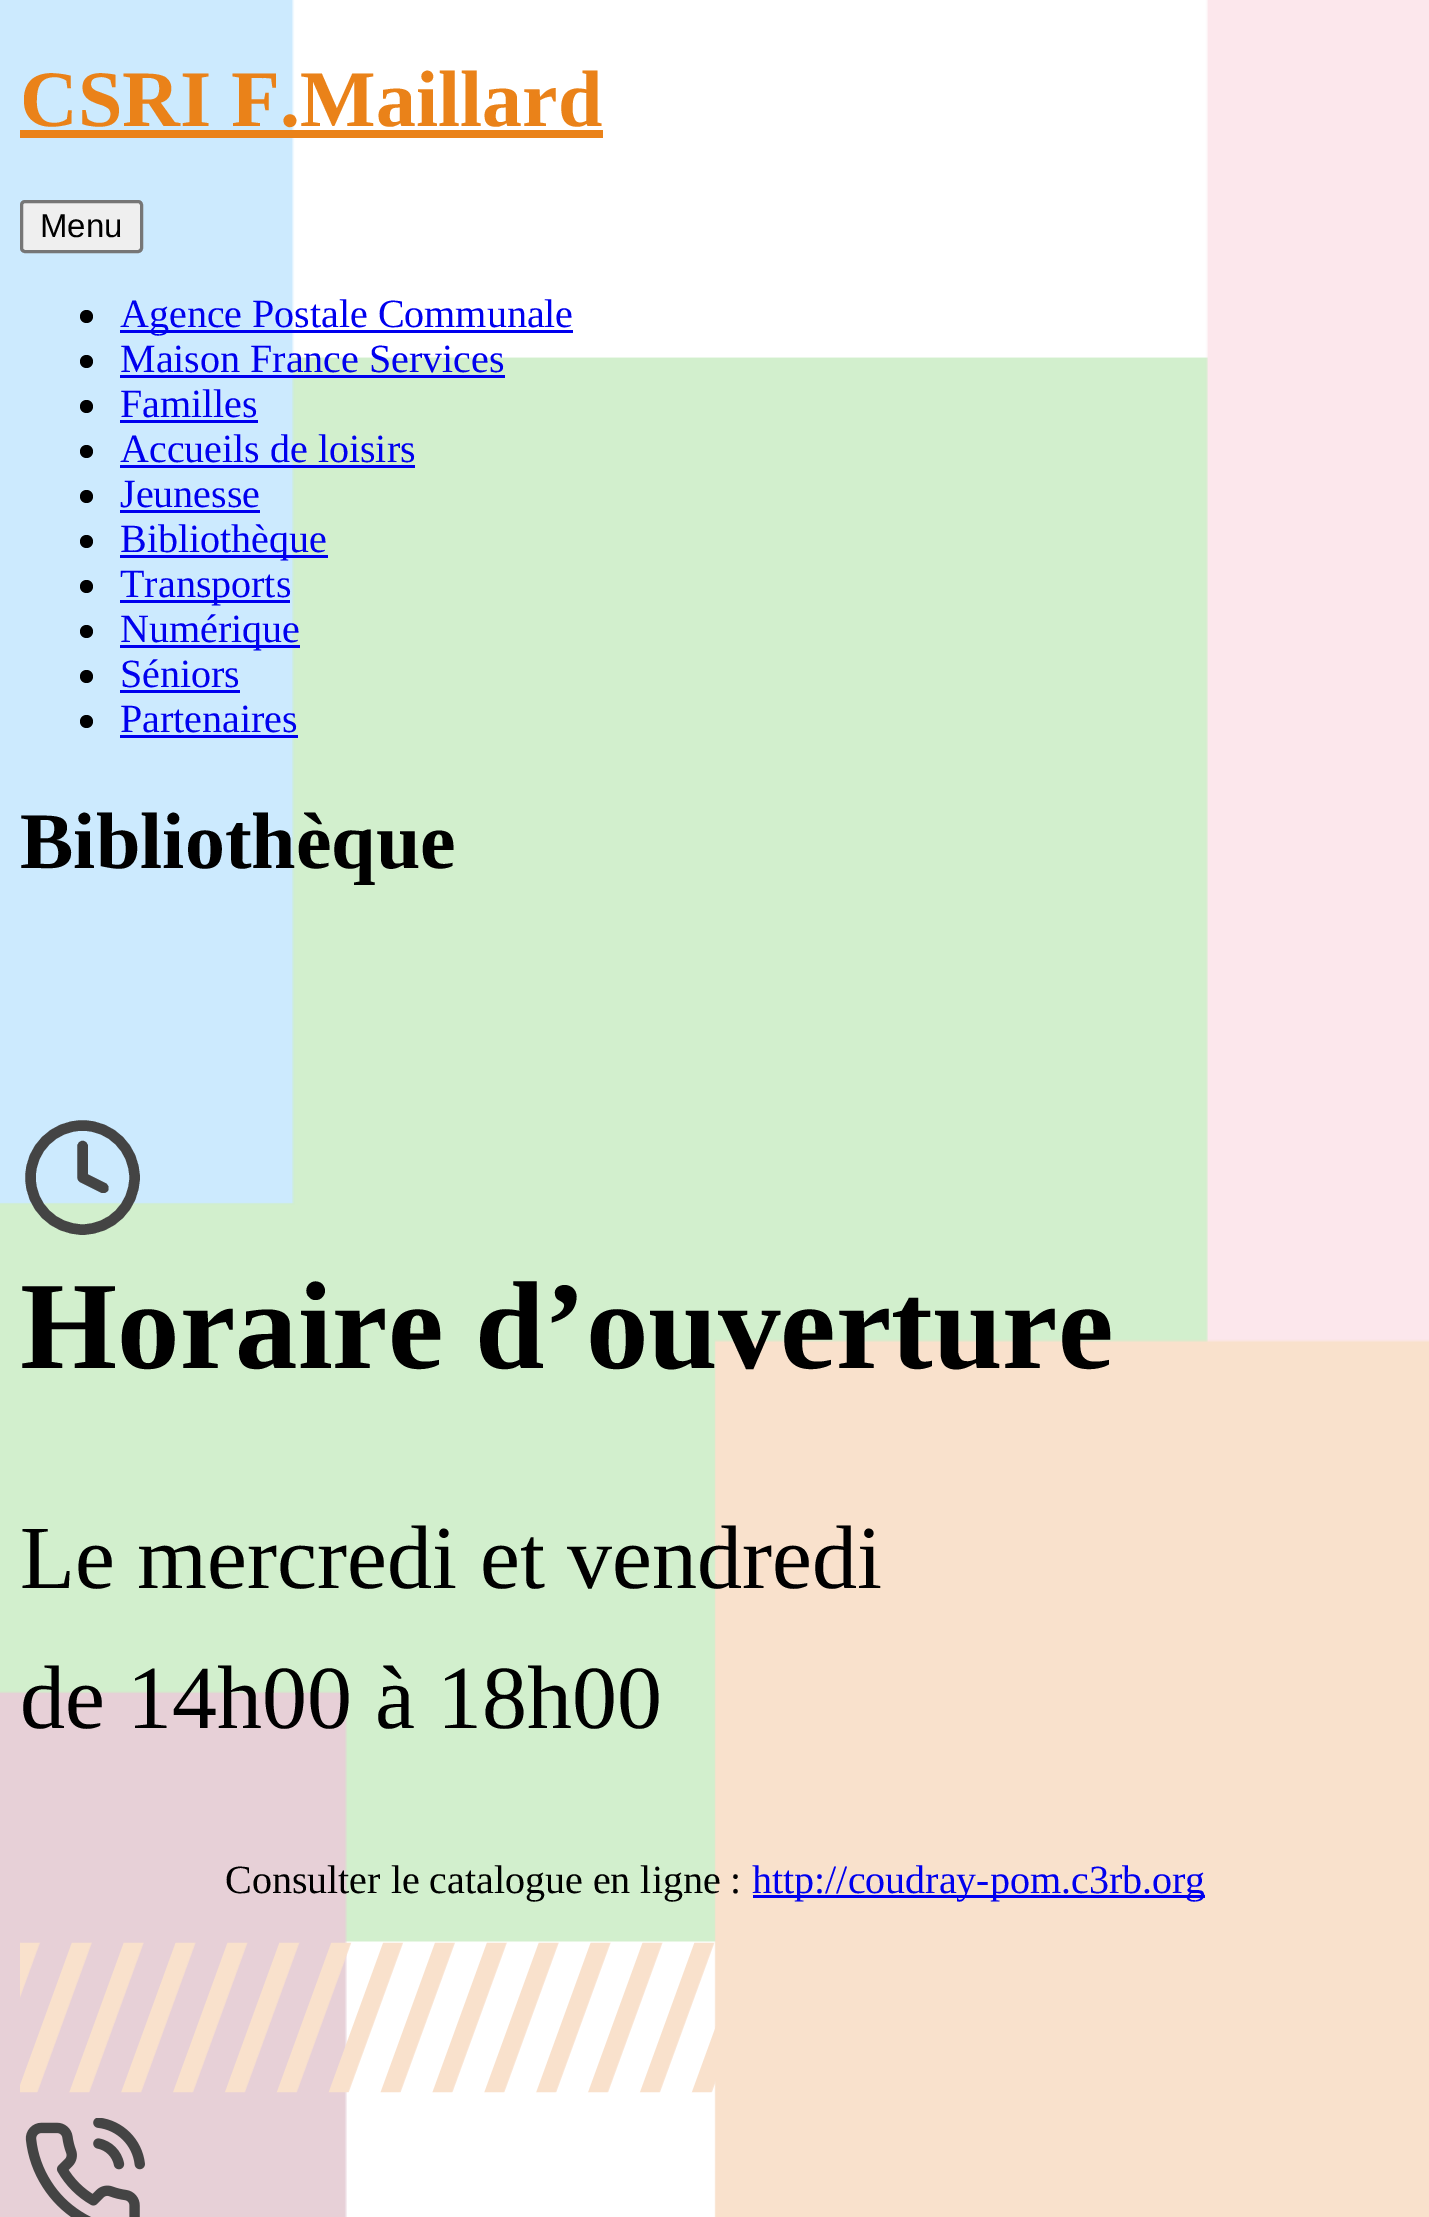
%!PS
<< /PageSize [1429 2217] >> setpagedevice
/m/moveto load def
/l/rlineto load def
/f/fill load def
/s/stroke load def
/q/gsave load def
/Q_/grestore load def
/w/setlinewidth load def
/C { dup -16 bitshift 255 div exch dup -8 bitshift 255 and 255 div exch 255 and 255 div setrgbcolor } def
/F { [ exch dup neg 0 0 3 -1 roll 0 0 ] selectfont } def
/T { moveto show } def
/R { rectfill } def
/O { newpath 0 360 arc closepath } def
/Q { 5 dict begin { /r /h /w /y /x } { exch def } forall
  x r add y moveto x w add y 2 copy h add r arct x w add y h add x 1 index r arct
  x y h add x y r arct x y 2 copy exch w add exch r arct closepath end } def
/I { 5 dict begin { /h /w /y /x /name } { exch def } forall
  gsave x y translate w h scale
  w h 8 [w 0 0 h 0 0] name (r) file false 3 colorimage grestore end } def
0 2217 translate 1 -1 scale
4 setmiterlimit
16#FFFFFF C
0 0 1429 2217 R
(1.rgb) 0 0 1429 2217 I
/LiberationSerif-Bold 80 F
16#EA8219 C
(CSRI F.Maillard) 20 126 T
20 130 583 8 R
16#EFEFEF C
21.5 201.5 120 50 3.5 Q q f Q_
16#767676 C
3 w
s
/LiberationSans-Regular 33 F
16#000000 C
(Menu) 40 237 T
86.5 316.5 6.5 O f
16#0000EE C
120 330 453 3 R
/LiberationSerif-Regular 40 F
(Agence Postale Communale) 120 327 T
16#000000 C
86.5 361.5 6.5 O f
16#0000EE C
(Maison France Services) 120 372 T
120 375 385 3 R
16#000000 C
86.5 406.5 6.5 O f
16#0000EE C
(Familles) 120 417 T
120 420 138 3 R
16#000000 C
86.5 451.5 6.5 O f
16#0000EE C
(Accueils de loisirs) 120 462 T
120 465 295 3 R
16#000000 C
86.5 496.5 6.5 O f
16#0000EE C
(Jeunesse) 120 507 T
120 510 140 3 R
16#000000 C
86.5 541.5 6.5 O f
16#0000EE C
120 555 208 3 R
(Bibliothèque) 120 552 T
16#000000 C
86.5 586.5 6.5 O f
16#0000EE C
120 600 170 3 R
(Transports) 120 597 T
16#000000 C
86.5 631.5 6.5 O f
16#0000EE C
120 645 180 3 R
(Numérique) 120 642 T
16#000000 C
86.5 676.5 6.5 O f
16#0000EE C
(Séniors) 120 687 T
120 690 120 3 R
16#000000 C
86.5 721.5 6.5 O f
16#0000EE C
(Partenaires) 120 732 T
120 735 178 3 R
/LiberationSerif-Bold 80 F
16#000000 C
(Bibliothèque) 20 868 T
16#444444 C
10.4 w
82.5 1177.5 52 O s
1 setlinecap
1 setlinejoin
82.5 1146 m 0 31.5 l 21 10.5 l s
/LiberationSerif-Bold 125 F
16#000000 C
(Horaire d’ouverture) 20 1368 T
/LiberationSerif-Regular 90 F
(Le mercredi et vendredi) 20 1588 T
(de 14h00 à 18h00) 20 1728 T
/LiberationSerif-Regular 40 F
(Consulter le catalogue en ligne :) 225 1893 T
16#0000EE C
753 1895 452 3 R
(http://coudray-pom.c3rb.org) 752 1893 T
(2.rgb) 20 1942 696 151 I
(3.rgb) 25 2118 120 99 I
showpage
